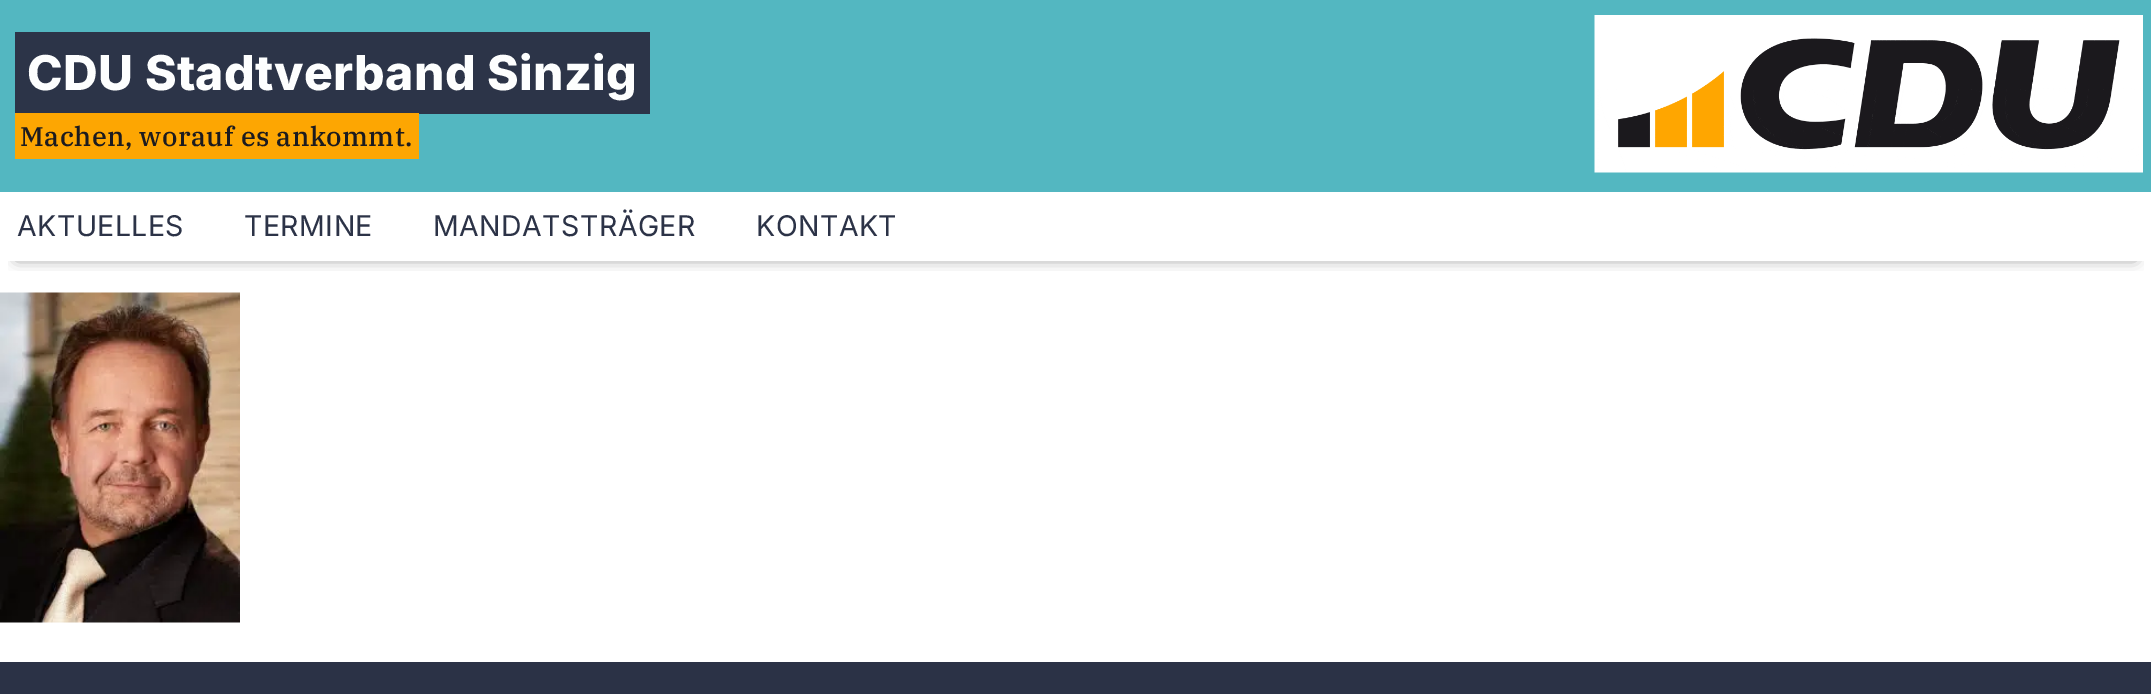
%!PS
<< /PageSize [2151 694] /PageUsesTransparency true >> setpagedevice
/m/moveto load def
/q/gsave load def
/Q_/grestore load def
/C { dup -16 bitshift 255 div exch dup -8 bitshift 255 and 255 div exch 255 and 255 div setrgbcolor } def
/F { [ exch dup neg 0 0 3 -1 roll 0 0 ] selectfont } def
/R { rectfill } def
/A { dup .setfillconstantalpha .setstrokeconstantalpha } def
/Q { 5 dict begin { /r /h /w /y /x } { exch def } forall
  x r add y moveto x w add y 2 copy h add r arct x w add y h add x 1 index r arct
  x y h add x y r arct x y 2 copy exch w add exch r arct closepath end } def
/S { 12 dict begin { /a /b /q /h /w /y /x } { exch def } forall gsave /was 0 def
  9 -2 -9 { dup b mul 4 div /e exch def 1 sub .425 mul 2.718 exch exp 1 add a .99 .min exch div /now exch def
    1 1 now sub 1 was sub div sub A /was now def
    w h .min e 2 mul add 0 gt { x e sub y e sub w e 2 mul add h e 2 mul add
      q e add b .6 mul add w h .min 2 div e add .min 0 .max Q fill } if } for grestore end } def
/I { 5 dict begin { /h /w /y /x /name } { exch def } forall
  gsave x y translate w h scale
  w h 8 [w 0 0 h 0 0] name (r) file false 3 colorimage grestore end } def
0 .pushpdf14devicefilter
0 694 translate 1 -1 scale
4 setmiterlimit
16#FFFFFF C
0 0 2151 694 R
16#53B7C1 C
0 0 2151 192 R
16#FDA602 C
15 114 404 45 R
16#2C3448 C
15 32 635 82 R
/Inter-ExtraBold 48 F
16#FDFEFE C
27 90 m .45 0 (CDU Stadtverband Sinzig) ashow
16#FDA501 C
15 113 404 1 R
/IBMPlexSerif-Medium 27 F
16#1C1B1F C
20 146 m .45 0 (Machen, worauf es ankommt.) ashow
(1.rgb) 1594 15 549 158 I
q
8 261 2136 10 rectclip
16#000000 C
17 222 2118 36 0 7.5 .5 S
Q_
/Inter-Regular 28.5 F
16#2C3347 C
17 236 m .45 0 (AKTUELLES) ashow
244 236 m .45 0 (TERMINE) ashow
433 236 m .45 0 (MANDATSTRÄGER) ashow
756 236 m .45 0 (KONTAKT) ashow
(2.rgb) 0 292 240 331 I
16#2B3246 C
0 662 2151 32 R
.poppdf14devicefilter showpage
